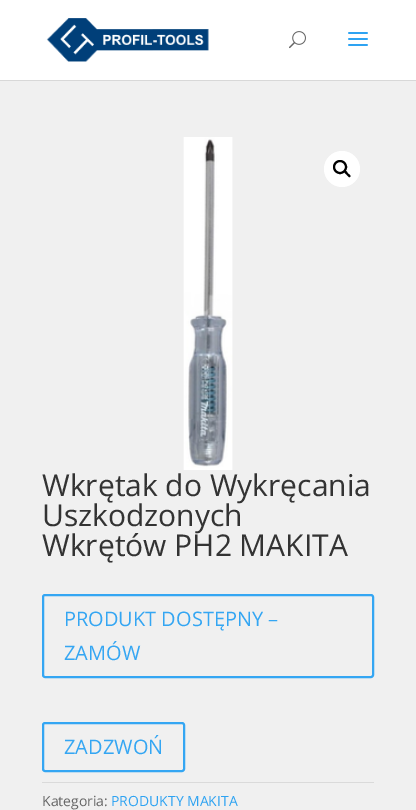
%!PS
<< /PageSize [416 810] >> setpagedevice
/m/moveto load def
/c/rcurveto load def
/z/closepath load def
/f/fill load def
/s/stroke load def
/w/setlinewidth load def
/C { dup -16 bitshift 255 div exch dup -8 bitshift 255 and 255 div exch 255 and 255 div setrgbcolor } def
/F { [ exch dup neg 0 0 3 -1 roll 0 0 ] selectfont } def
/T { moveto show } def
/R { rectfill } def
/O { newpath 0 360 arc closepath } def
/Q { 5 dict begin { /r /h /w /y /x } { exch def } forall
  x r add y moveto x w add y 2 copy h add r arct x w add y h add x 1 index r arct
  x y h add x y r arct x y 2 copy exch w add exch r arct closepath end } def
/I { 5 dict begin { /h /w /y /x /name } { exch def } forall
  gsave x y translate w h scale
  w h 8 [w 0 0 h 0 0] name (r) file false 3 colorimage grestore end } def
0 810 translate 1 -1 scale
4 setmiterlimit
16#F0F0F0 C
0 0 416 810 R
16#D8D8D8 C
0 80 416 1 R
16#FFFFFF C
0 0 416 80 R
(1.rgb) 46 18 163 44 I
(2.rgb) 289 31 17 18 I
(3.rgb) 348 32 20 14 I
(4.rgb) 183 137 50 333 I
342 169 18 O f
16#000000 C
2 w
340 167 6 O s
344.5 171 m 1.5 -1 3 1.5 3.5 2.5 c .5 .5 3.5 2 2 3.5 c -1 1 -2.5 -1.5 -3.5 -2.5 c -.5 -.5 -3 -2 -2 -3.5 c z f
/OpenSans-Regular 30 F
16#333333 C
(Wkrętak do Wykręcania) 42 496 T
(Uszkodzonych) 42 526 T
(Wkrętów PH2 MAKITA) 42 556 T
16#34A6F3 C
43 595 330 82 2 Q s
/OpenSans-Regular 20 F
(PRODUKT DOSTĘPNY –) 64 626 T
(ZAMÓW) 64 660 T
43 723 141 48 2 Q s
(ZADZWOŃ) 64 754 T
16#DADADA C
42 782 332 1 R
/OpenSans-Regular 14 F
16#666666 C
(Kategoria:) 42 806 T
16#2EA3F2 C
(PRODUKTY MAKITA) 111 806 T
showpage
